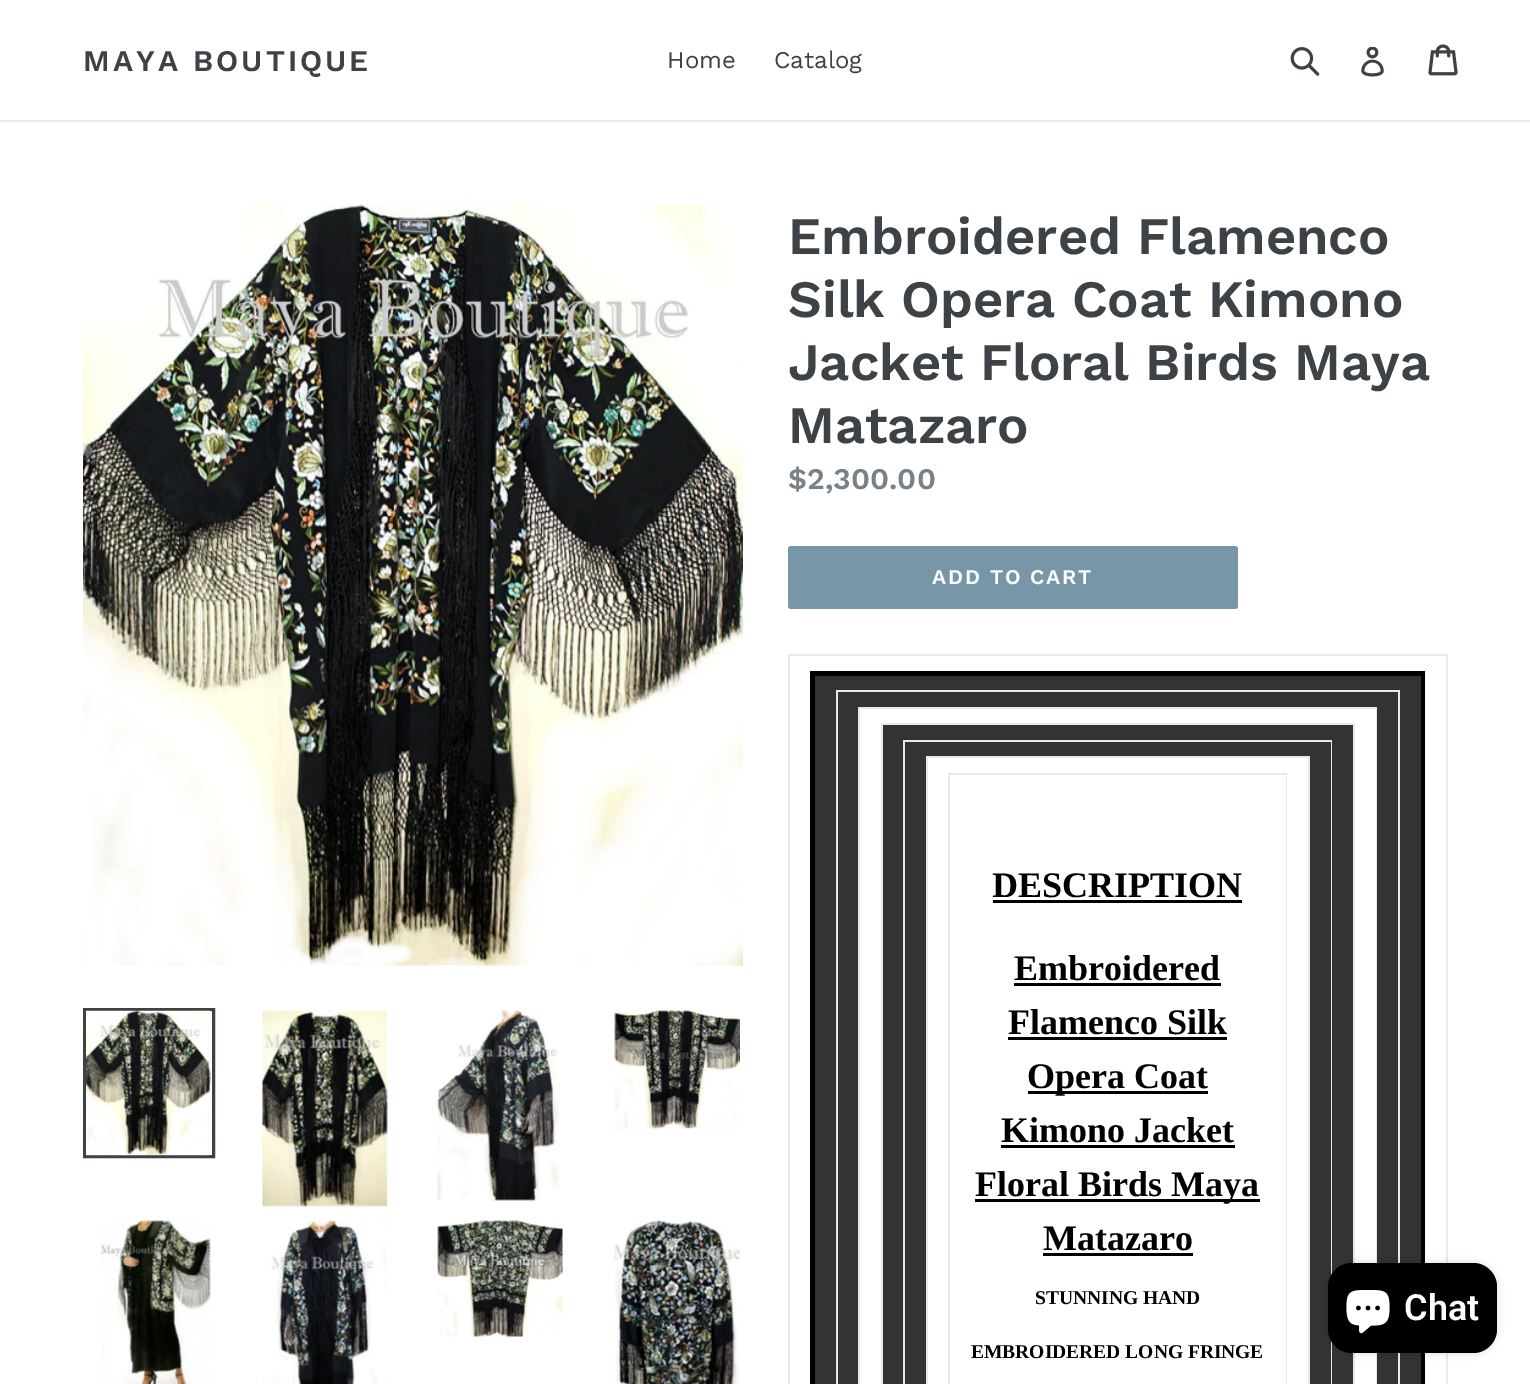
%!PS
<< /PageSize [1530 1384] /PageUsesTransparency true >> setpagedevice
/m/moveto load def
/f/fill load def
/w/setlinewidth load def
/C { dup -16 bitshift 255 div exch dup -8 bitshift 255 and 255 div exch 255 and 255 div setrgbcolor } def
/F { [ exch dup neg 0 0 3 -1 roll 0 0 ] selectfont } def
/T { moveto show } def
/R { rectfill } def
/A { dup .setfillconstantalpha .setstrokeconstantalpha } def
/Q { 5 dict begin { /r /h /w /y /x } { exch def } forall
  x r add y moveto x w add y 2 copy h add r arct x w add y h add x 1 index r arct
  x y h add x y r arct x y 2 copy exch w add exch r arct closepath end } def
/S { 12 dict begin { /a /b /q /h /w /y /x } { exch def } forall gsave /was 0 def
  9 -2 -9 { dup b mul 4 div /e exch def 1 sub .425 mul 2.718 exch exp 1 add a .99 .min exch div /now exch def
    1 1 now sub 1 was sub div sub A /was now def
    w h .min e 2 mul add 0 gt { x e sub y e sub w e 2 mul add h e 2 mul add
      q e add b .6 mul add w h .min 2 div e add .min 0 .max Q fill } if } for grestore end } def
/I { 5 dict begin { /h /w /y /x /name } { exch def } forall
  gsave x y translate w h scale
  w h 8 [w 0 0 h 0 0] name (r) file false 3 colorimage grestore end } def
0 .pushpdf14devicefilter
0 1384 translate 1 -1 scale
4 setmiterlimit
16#FFFFFF C
0 0 1530 1384 R
16#E8E9EB C
0 120 1530 2 R
/WorkSans-SemiBold 30 F
16#3D4246 C
83 71 m 3 0 (MAYA BOUTIQUE) ashow
/WorkSans-Regular 24 F
(Home) 667 68 T
(Catalog) 774 68 T
(1.rgb) 1290 47 30 29 I
(2.rgb) 1361 47 23 30 I
(3.rgb) 1428 44 30 32 I
(4.rgb) 83 204 660 762 I
3 w
84.5 1009.5 129 147 rectstroke
(5.rgb) 86 1010 125 146 I
(6.rgb) 262 1010 126 197 I
(7.rgb) 437 1010 123 191 I
(8.rgb) 614 1010 126 119 I
(9.rgb) 100 1220 111 164 I
(10.rgb) 263 1220 124 164 I
(11.rgb) 437 1220 126 117 I
(12.rgb) 614 1220 126 164 I
/WorkSans-SemiBold 52.5 F
(Embroidered Flamenco) 788 254 T
(Silk Opera Coat Kimono) 788 317 T
(Jacket Floral Birds Maya) 788 380 T
(Matazaro) 788 443 T
/WorkSans-SemiBold 30 F
16#788188 C
($2,300.00) 788 489 T
16#7796A8 C
788 546 450 63 3 Q f
/WorkSans-SemiBold 21 F
16#FFFFFF C
932 584 m 1.75 0 (ADD TO CART) ashow
16#E8E9EB C
788 654 660 2 R
1446 654 2 730 R
788 654 2 730 R
16#333333 C
815 676 606 708 R
16#000000 C
810 671 615 5 R
1421 671 4 713 R
810 671 5 713 R
16#E8E9EB C
836 690 564 2 R
1398 690 2 694 R
836 690 2 694 R
16#FFFFFF C
860 709 516 675 R
16#E8E9EB C
858 707 519 2 R
1376 707 1 677 R
858 707 2 677 R
16#333333 C
883 725 470 659 R
16#E8E9EB C
881 723 474 2 R
1353 723 2 661 R
881 723 2 661 R
903 740 429 2 R
1331 740 1 644 R
903 740 2 644 R
16#FFFFFF C
928 758 380 626 R
16#E8E9EB C
926 756 384 2 R
1308 756 2 628 R
926 756 2 628 R
948 773 339 2 R
1286 773 1 611 R
948 773 2 611 R
/LiberationSerif-Bold 36 F
16#000000 C
(DESCRIPTION) 992 897 T
993 900 249 3 R
(Embroidered) 1014 980 T
1014 983 207 3 R
(Flamenco Silk) 1008 1034 T
1008 1037 219 3 R
1028 1091 180 3 R
(Opera Coat) 1027 1088 T
(Kimono Jacket) 1001 1142 T
1001 1145 234 3 R
975 1199 285 3 R
(Floral Birds Maya) 975 1196 T
(Matazaro) 1043 1250 T
1043 1253 150 3 R
/LiberationSerif-Bold 19.5 F
(STUNNING HAND) 1035 1304 T
(EMBROIDERED LONG FRINGE) 971 1358 T
1328 1263 169 90 24 4 .15 S
1328 1263 169 90 24 Q f
(13.rgb) 1346 1290 44 44 I
/Roboto-SemiBold 36 F
16#FFFFFF C
(Chat) 1404 1320 T
.poppdf14devicefilter showpage
